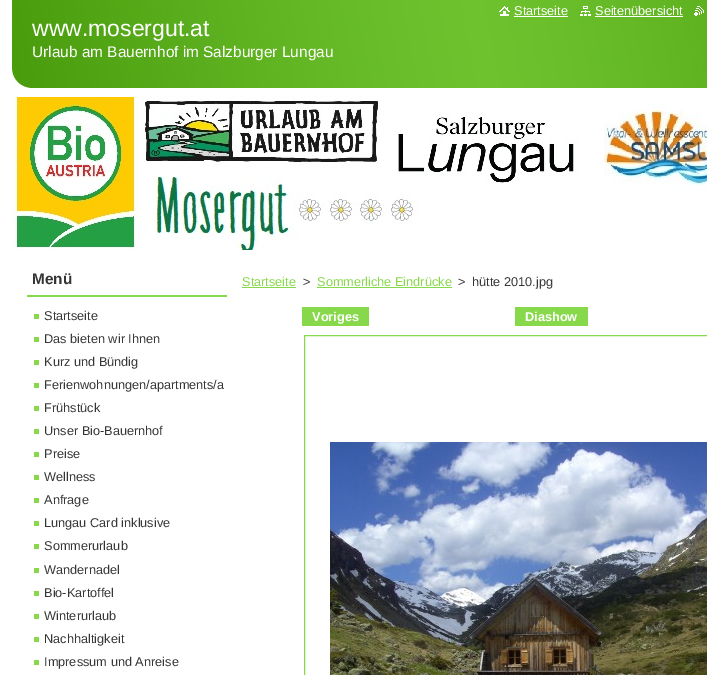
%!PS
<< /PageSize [707 675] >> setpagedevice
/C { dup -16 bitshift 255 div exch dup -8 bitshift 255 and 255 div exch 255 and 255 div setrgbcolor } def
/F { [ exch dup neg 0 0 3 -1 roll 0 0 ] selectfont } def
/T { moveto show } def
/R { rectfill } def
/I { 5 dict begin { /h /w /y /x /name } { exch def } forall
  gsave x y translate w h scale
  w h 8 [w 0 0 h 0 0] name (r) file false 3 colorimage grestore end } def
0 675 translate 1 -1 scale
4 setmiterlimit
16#FFFFFF C
0 0 707 675 R
(4.rgb) 12 0 695 97 I
(1.rgb) 499 6 11 10 I
/LiberationSans-Regular 12.75 F
(Startseite) 514 15 T
514 16 54 1 R
(2.rgb) 580 6 11 10 I
(Seitenübersicht) 595 15 T
595 16 88 1 R
(3.rgb) 694 6 10 10 I
/LiberationSans-Regular 23 F
(www.mosergut.at) 32 36 T
/LiberationSans-Regular 15.4 F
(Urlaub am Bauernhof im Salzburger Lungau) 32 57 T
(5.rgb) 12 97 695 153 I
16#87D84B C
27 295 200 2 R
/LiberationSans-Bold 15.4 F
16#353535 C
(Menü) 32 284 T
/LiberationSans-Regular 12.75 F
(Startseite) 44 320 T
16#87D84B C
34 314 5 5 R
16#353535 C
(Das bieten wir Ihnen) 44 343 T
16#87D84B C
34 337 5 5 R
16#353535 C
(Kurz und Bündig) 44 366 T
16#87D84B C
34 360 5 5 R
16#353535 C
(Ferienwohnungen/apartments/a) 44 389 T
16#87D84B C
34 383 5 5 R
16#353535 C
(Frühstück) 44 412 T
16#87D84B C
34 406 5 5 R
16#353535 C
(Unser Bio-Bauernhof) 44 435 T
16#87D84B C
34 429 5 5 R
16#353535 C
(Preise) 44 458 T
16#87D84B C
34 452 5 5 R
16#353535 C
(Wellness) 44 481 T
16#87D84B C
34 475 5 5 R
16#353535 C
(Anfrage) 44 504 T
16#87D84B C
34 498 5 5 R
16#353535 C
(Lungau Card inklusive) 44 527 T
16#87D84B C
34 521 5 5 R
16#353535 C
(Sommerurlaub) 44 550 T
16#87D84B C
34 544 5 5 R
16#353535 C
(Wandernadel) 44 574 T
16#87D84B C
34 568 5 5 R
16#353535 C
(Bio-Kartoffel) 44 597 T
16#87D84B C
34 591 5 5 R
16#353535 C
(Winterurlaub) 44 620 T
16#87D84B C
34 614 5 5 R
16#353535 C
(Nachhaltigkeit) 44 643 T
16#87D84B C
34 637 5 5 R
16#353535 C
(Impressum und Anreise) 44 666 T
16#87D84B C
34 660 5 5 R
(Startseite) 242 286 T
242 287 54 1 R
16#353535 C
(>) 303 286 T
16#87D84B C
(Sommerliche Eindrücke) 317 286 T
317 287 135 1 R
16#353535 C
(>) 458 286 T
(hütte 2010.jpg) 472 286 T
16#87D84B C
302 307 67 19 R
/LiberationSans-Bold 12.75 F
16#FFFFFF C
(Voriges) 312 321 T
16#87D84B C
515 307 73 19 R
16#FFFFFF C
(Diashow) 525 321 T
16#87D84B C
304.5 335.5 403 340 rectstroke
(6.rgb) 330 442 377 233 I
showpage
